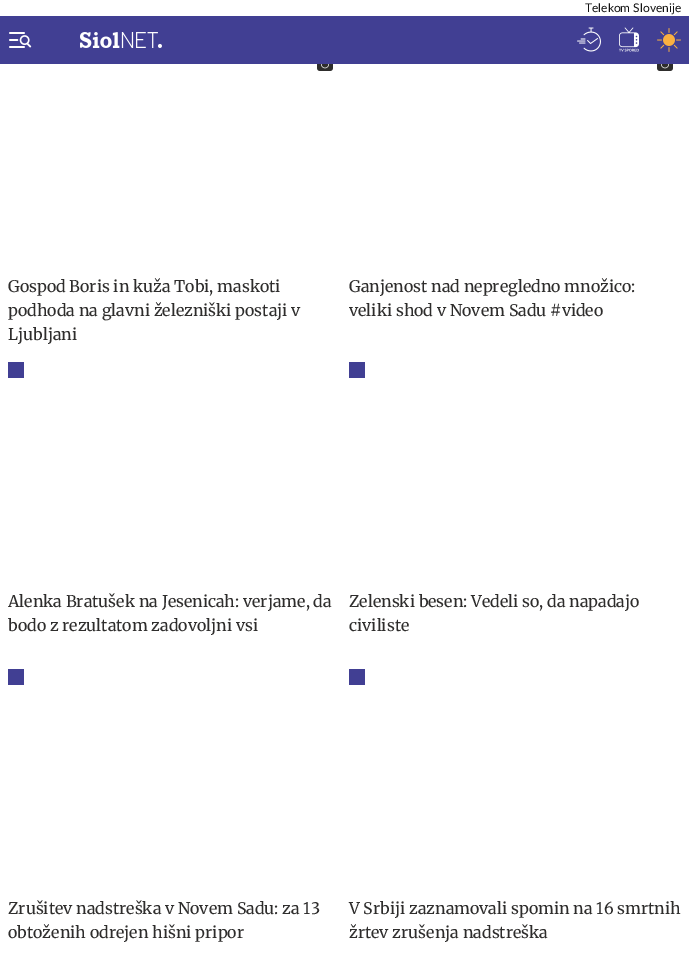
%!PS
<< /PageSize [689 953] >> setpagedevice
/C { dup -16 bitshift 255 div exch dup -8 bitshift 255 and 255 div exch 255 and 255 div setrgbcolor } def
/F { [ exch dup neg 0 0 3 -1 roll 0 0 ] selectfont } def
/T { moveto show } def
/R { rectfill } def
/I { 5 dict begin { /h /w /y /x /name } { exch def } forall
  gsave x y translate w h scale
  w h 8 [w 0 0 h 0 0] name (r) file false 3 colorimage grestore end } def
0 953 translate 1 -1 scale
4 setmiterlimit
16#FFFFFF C
0 0 689 953 R
/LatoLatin-Regular 12 F
16#121212 C
(Telekom Slovenije) 585 12 T
16#413F93 C
0 16 689 48 R
(1.rgb) 9 32 23 16 I
(2.rgb) 80 32 82 16 I
(3.rgb) 577 27 24 25 I
(4.rgb) 619 27 20 25 I
(5.rgb) 657 28 24 24 I
(6.rgb) 317 64 16 7 I
/Merriweather-Regular 16 F
16#2E2D2C C
(Gospod Boris in kuža Tobi, maskoti) 8 292 T
(podhoda na glavni železniški postaji v) 8 316 T
(Ljubljani) 8 340 T
(6.rgb) 657 64 16 7 I
(Ganjenost nad nepregledno množico:) 349 292 T
(veliki shod v Novem Sadu #video) 349 316 T
16#413F93 C
8 362 16 16 R
16#2E2D2C C
(Alenka Bratušek na Jesenicah: verjame, da) 8 607 T
(bodo z rezultatom zadovoljni vsi) 8 631 T
16#413F93 C
349 362 16 16 R
16#2E2D2C C
(Zelenski besen: Vedeli so, da napadajo) 349 607 T
(civiliste) 349 631 T
16#413F93 C
8 669 16 16 R
16#2E2D2C C
(Zrušitev nadstreška v Novem Sadu: za 13) 8 914 T
(obtoženih odrejen hišni pripor) 8 938 T
16#413F93 C
349 669 16 16 R
16#2E2D2C C
(V Srbiji zaznamovali spomin na 16 smrtnih) 349 914 T
(žrtev zrušenja nadstreška) 349 938 T
showpage
